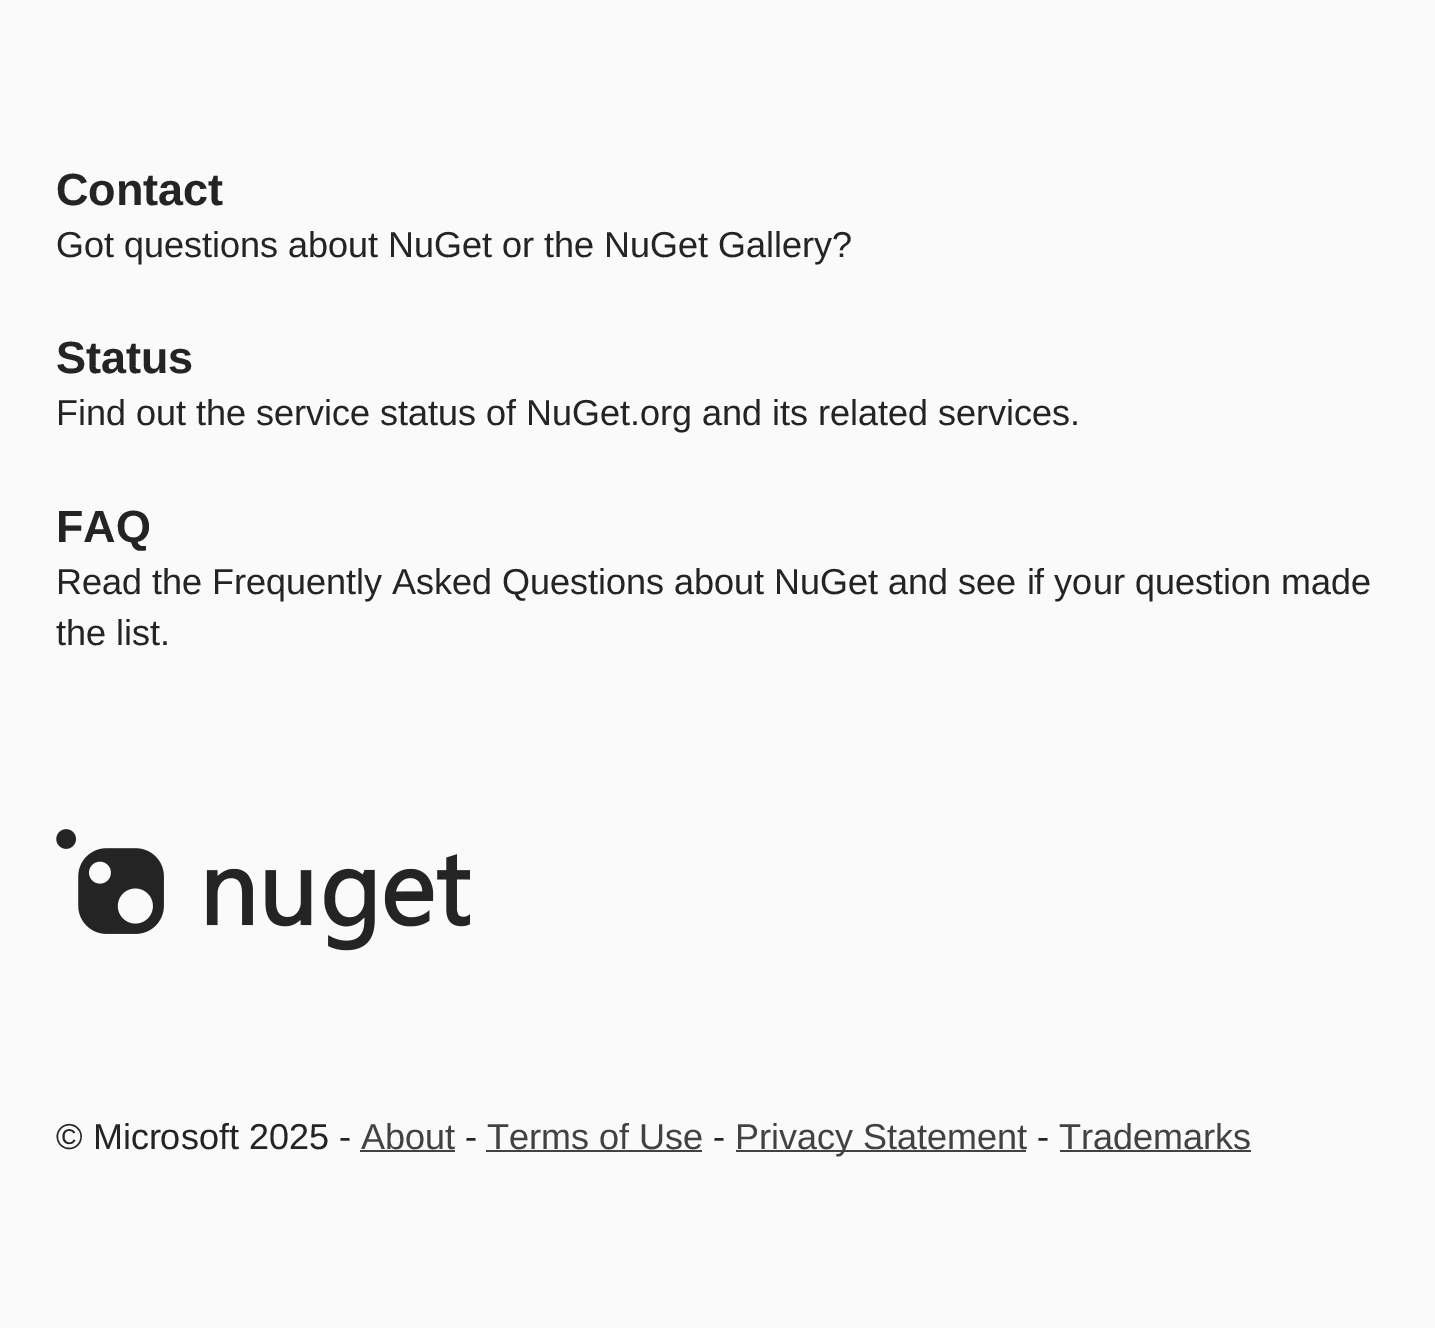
%!PS
<< /PageSize [1435 1328] >> setpagedevice
/C { dup -16 bitshift 255 div exch dup -8 bitshift 255 and 255 div exch 255 and 255 div setrgbcolor } def
/F { [ exch dup neg 0 0 3 -1 roll 0 0 ] selectfont } def
/T { moveto show } def
/R { rectfill } def
/I { 5 dict begin { /h /w /y /x /name } { exch def } forall
  gsave x y translate w h scale
  w h 8 [w 0 0 h 0 0] name (r) file false 3 colorimage grestore end } def
0 1328 translate 1 -1 scale
4 setmiterlimit
16#FAFAFA C
0 0 1435 1328 R
/LiberationSans-Bold 45 F
16#242424 C
(Contact) 56 205 T
/LiberationSans-Regular 36 F
(Got questions about NuGet or the NuGet Gallery?) 56 257 T
/LiberationSans-Bold 45 F
(Status) 56 373 T
/LiberationSans-Regular 36 F
(Find out the service status of NuGet.org and its related services.) 56 425 T
/LiberationSans-Bold 45 F
(FAQ) 56 542 T
/LiberationSans-Regular 36 F
(Read the Frequently Asked Questions about NuGet and see if your question made) 56 594 T
(the list.) 56 645 T
(1.rgb) 56 829 414 122 I
(© Microsoft 2025 -) 56 1149 T
16#424242 C
(About) 361 1149 T
360 1150 95 2 R
16#242424 C
(-) 465 1149 T
16#424242 C
(Terms of Use) 487 1149 T
486 1150 216 2 R
16#242424 C
(-) 713 1149 T
16#424242 C
736 1150 290 2 R
(Privacy Statement) 735 1149 T
16#242424 C
(-) 1037 1149 T
16#424242 C
(Trademarks) 1059 1149 T
1060 1150 191 2 R
showpage
